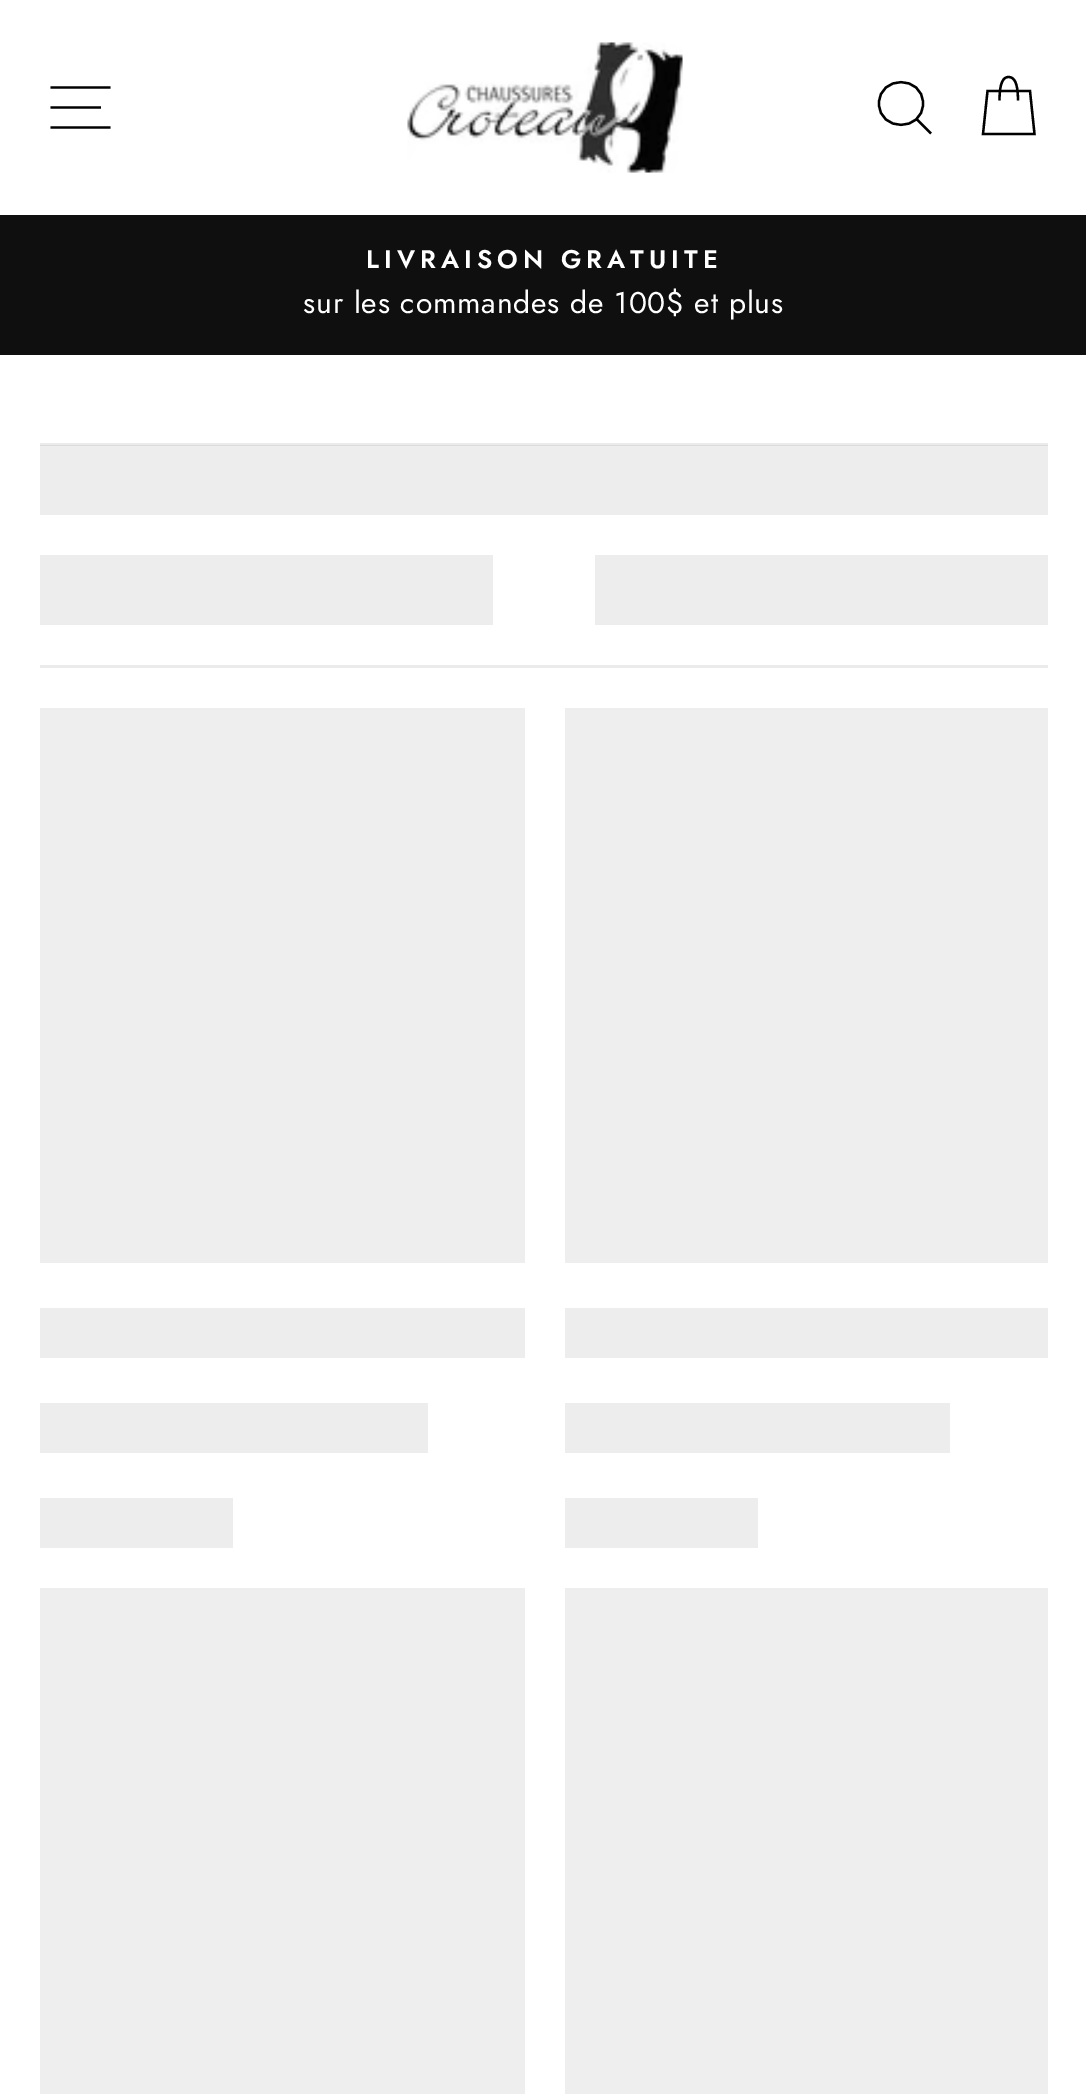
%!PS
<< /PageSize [1086 2094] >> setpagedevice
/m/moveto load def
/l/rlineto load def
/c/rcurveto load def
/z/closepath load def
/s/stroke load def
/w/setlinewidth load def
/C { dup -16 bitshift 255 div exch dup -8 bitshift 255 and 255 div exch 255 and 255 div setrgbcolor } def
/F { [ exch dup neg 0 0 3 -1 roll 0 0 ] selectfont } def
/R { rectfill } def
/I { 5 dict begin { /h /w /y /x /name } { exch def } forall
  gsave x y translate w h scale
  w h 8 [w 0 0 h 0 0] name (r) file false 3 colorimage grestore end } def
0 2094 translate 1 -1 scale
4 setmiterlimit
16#FFFFFF C
0 0 1086 2094 R
16#EDEDED C
40 446 1008 69 R
16#000000 C
2.3 w
50.5 87.5 m 60 0 l 50.5 107.5 m 50.5 0 l 50.5 127.5 m 60 0 l s
(1.rgb) 407 42 276 131 I
923 103.5 m 0 28.5 -44 28.5 -44 0 c 0 -28.5 44 -28.5 44 0 c z 931 133.5 m -14.5 -14.5 l s
999.5 100.5 m 0 -18.5 4 -23.5 9 -23.5 c 5.5 0 9.5 5 9.5 23.5 c 987.5 91 m 42.5 0 l 4.5 43 l -51.5 0 l z s
16#0F0F0F C
0 215 1086 140 R
/Jost-SemiBold 25.5 F
16#FFFFFF C
366 268 m 5.1 0 (LIVRAISON GRATUITE) ashow
/Jost-Regular 30 F
303 313 m .85 0 (sur les commandes de 100$ et plus) ashow
16#EBEBEB C
40 443 1008 2 R
16#DBDBDB C
40 445 1008 1 R
16#EBEBEB C
40 665 1008 3 R
16#EDEDED C
40 555 453 70 R
595 555 453 70 R
16#EEEEEE C
40 708 485 555 R
16#EDEDED C
40 1308 485 50 R
40 1403 388 50 R
40 1498 193 50 R
16#EEEEEE C
565 708 483 555 R
16#EDEDED C
565 1308 483 50 R
565 1403 385 50 R
565 1498 193 50 R
16#EEEEEE C
40 1588 485 506 R
565 1588 483 506 R
showpage
